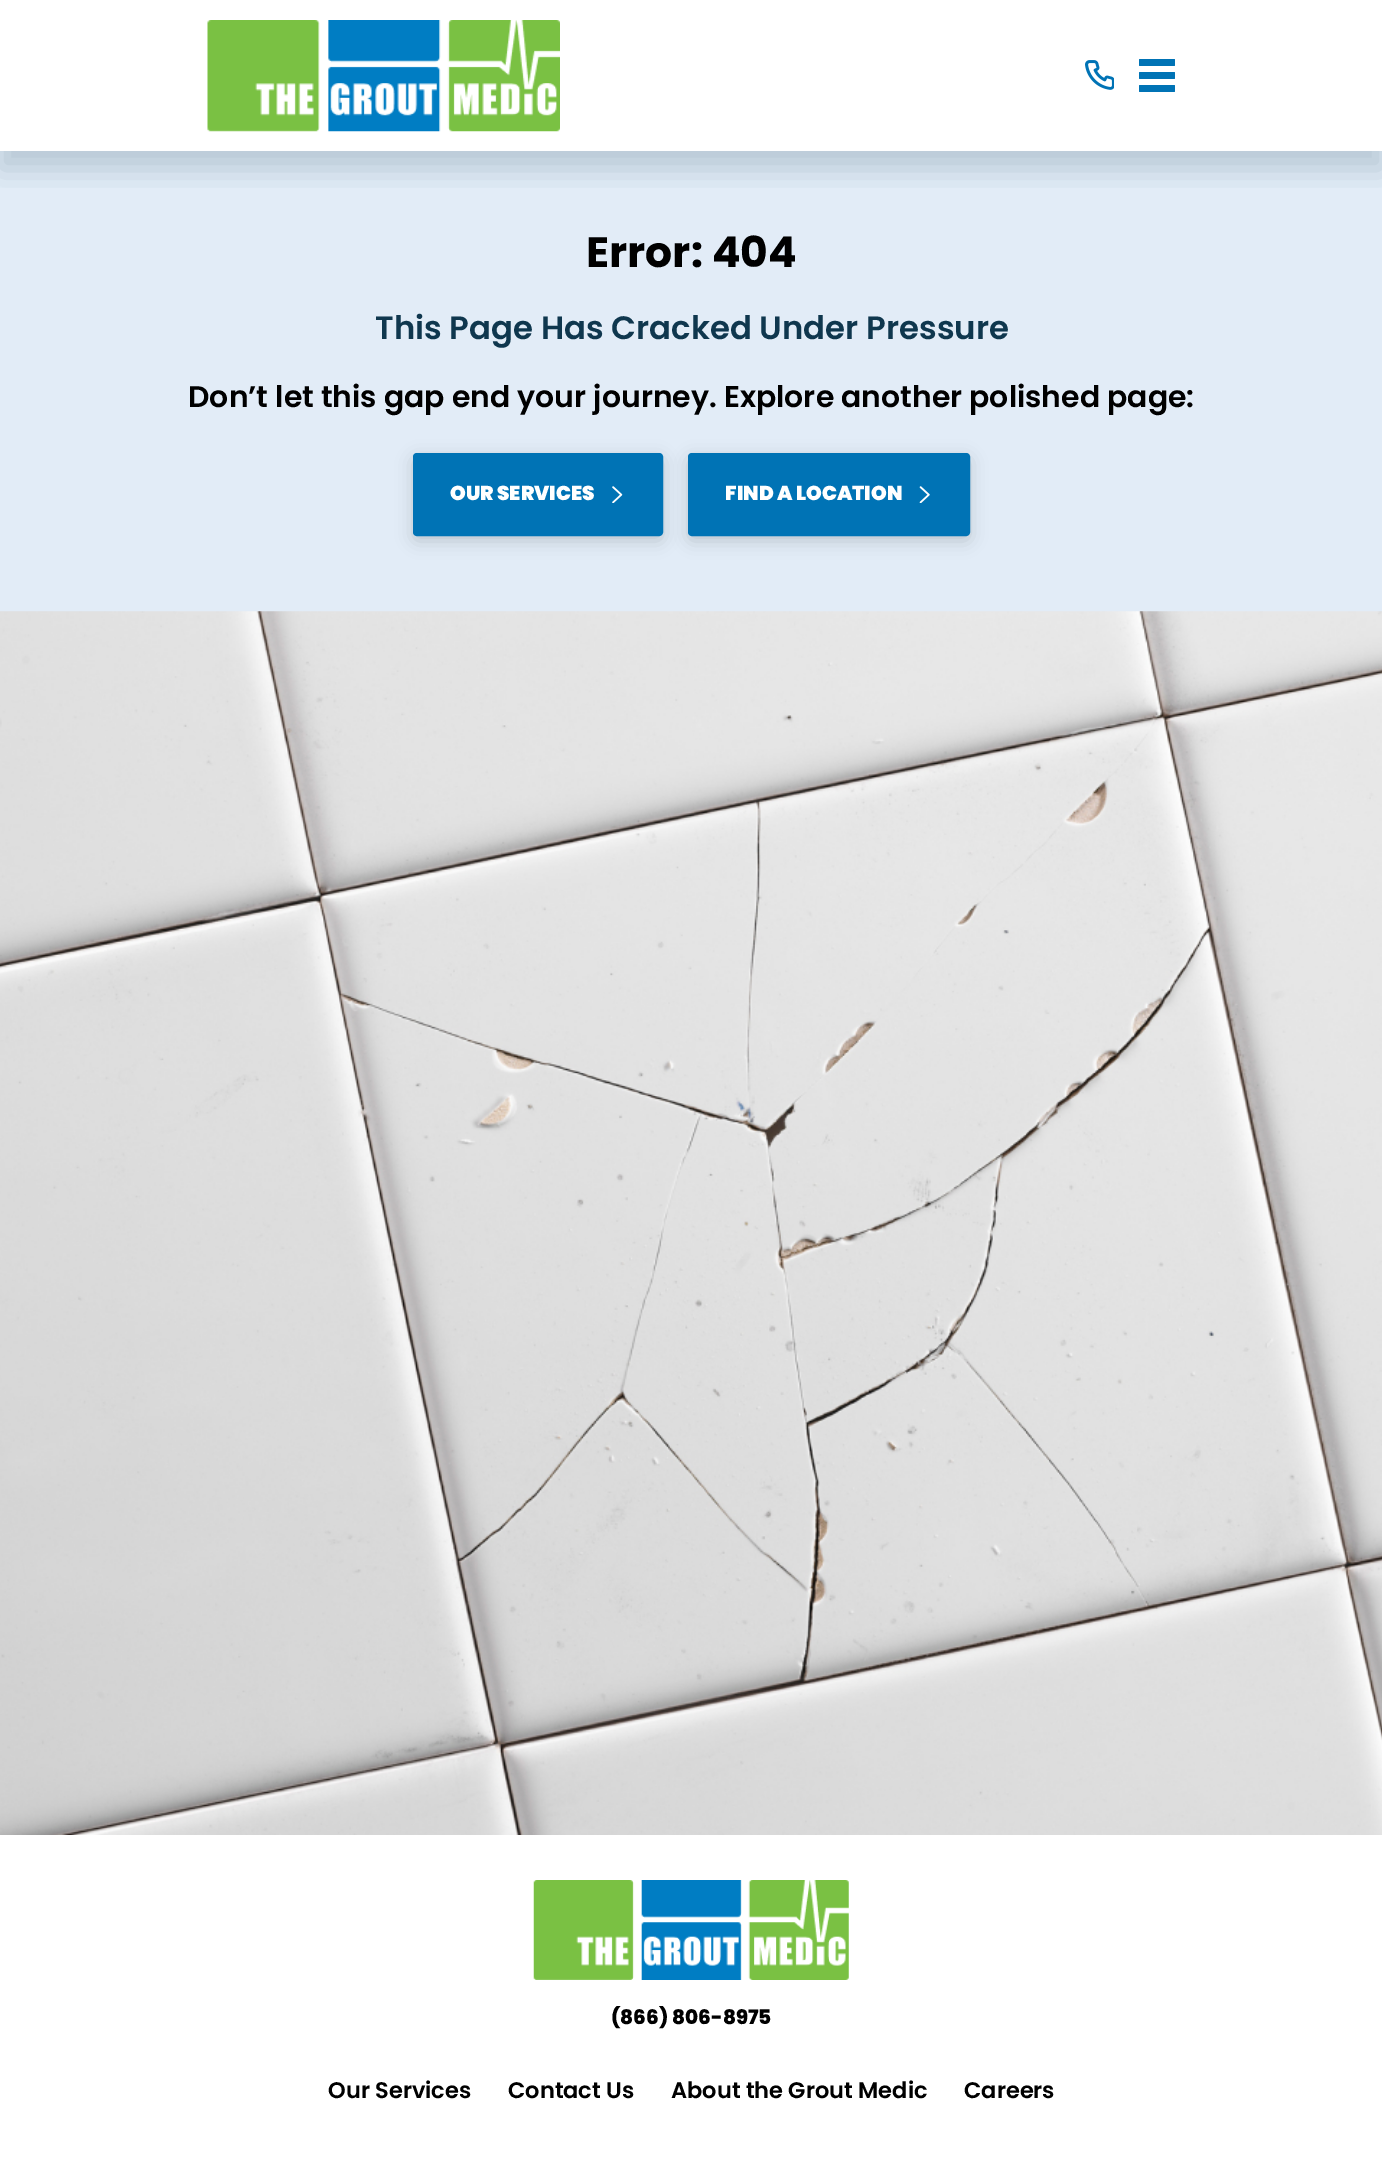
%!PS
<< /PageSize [1382 2163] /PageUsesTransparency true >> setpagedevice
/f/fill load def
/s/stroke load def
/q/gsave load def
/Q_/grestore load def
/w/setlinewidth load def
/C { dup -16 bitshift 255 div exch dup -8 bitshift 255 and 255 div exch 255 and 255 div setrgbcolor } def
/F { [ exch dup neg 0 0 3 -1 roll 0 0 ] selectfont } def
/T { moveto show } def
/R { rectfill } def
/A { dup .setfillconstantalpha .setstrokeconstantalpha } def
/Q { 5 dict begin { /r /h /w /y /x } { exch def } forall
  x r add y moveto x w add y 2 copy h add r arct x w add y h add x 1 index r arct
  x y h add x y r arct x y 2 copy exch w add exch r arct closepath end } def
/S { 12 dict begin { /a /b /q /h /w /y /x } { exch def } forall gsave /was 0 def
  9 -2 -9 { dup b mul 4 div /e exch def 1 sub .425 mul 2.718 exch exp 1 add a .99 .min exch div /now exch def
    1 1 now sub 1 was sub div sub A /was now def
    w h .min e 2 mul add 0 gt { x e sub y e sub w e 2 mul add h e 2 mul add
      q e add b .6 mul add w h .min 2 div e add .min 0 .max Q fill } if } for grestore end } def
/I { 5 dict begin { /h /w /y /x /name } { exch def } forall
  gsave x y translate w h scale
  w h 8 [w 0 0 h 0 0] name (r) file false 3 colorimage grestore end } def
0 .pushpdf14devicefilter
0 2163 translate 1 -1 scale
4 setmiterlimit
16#FFFFFF C
0 0 1382 2163 R
16#E2ECF7 C
0 151 1382 461 R
q
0 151 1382 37 rectclip
16#0F374E C
0 18 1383 151 0 15 .2 S
Q_
(1.rgb) 207 20 353 112 I
(2.rgb) 1085 60 29 30 I
16#0073B5 C
1139 59 36 7 1 Q f
1139 72 36 7 1 Q f
1139 85 36 7 1 Q f
/Poppins-Bold 42.5 F
16#000000 C
(Error: 404) 586 267 T
/Poppins-SemiBold 32.4 F
16#0F374E C
(This Page Has Cracked Under Pressure) 375 339 T
/Poppins-SemiBold 29.9 F
16#000000 C
(Don’t let this gap end your journey. Explore another polished page:) 188 407 T
413 458 250 83 4 8.5 .16 S
16#0073B5 C
415 455 246 79 2 Q q f Q_
4 w
s
/Poppins-Black 20 F
16#FFFFFF C
(OUR SERVICES) 450 500 T
(3.rgb) 612 486 11 17 I
16#000000 C
688 458 282 83 4 8.5 .16 S
16#0073B5 C
690 455 278 79 2 Q q f Q_
s
16#FFFFFF C
(FIND A LOCATION) 725 500 T
(4.rgb) 919 486 11 17 I
(5.rgb) 0 611 1382 1224 I
(6.rgb) 533 1880 316 100 I
/Poppins-ExtraBold 20 F
16#000000 C
(\(866\) 806-8975) 611 2024 T
/Poppins-SemiBold 22.5 F
(Our Services) 328 2098 T
(Contact Us) 508 2098 T
(About the Grout Medic) 671 2098 T
(Careers) 964 2098 T
.poppdf14devicefilter showpage
